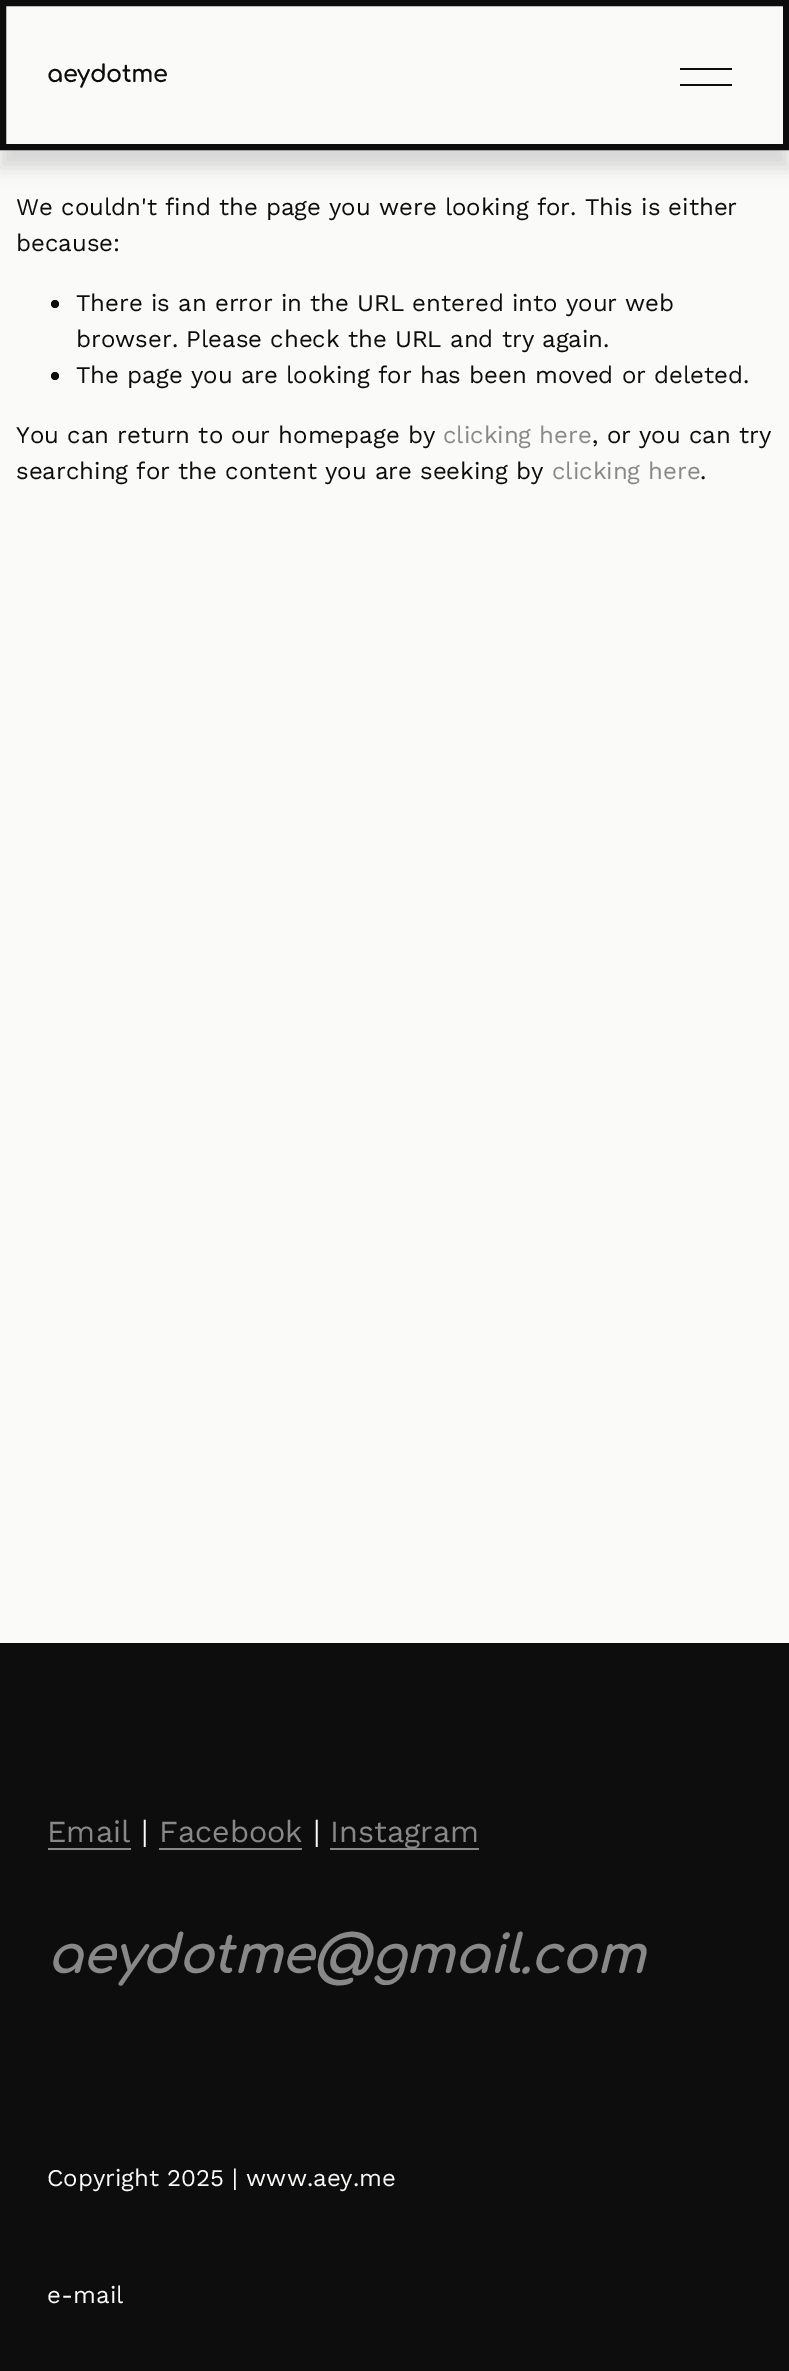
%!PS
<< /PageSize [789 2371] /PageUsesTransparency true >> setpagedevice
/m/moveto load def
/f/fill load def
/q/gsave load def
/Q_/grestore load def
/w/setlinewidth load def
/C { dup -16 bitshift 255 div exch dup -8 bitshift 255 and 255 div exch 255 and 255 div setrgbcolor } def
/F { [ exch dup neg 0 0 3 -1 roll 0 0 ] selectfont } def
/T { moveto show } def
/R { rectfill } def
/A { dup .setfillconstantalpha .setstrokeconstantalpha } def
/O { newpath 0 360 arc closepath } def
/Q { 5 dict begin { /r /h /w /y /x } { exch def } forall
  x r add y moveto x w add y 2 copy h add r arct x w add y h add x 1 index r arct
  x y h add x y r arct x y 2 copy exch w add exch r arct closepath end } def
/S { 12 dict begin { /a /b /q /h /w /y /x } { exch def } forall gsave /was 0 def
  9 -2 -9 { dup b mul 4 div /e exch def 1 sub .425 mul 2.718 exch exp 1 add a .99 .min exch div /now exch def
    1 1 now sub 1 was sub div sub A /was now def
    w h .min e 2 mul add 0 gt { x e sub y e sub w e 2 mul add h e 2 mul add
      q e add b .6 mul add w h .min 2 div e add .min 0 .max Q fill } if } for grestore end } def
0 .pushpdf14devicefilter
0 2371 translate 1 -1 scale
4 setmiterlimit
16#FAFAF9 C
0 0 789 2371 R
q
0 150 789 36 rectclip
16#D6D6D6 C
0 18 789 150 0 9 1 S
Q_
16#0D0D0D C
6 w
3 3 783 144 rectstroke
/Comfortaa-Bold 24 F
47 82 m -.5 0 (aeydotme) ashow
680 68 52 2 R
680 84 52 2 R
/WorkSans-Regular 24 F
(We couldn't find the page you were looking for. This is either) 16 215 T
(because:) 16 251 T
55 304 4 O f
(There is an error in the URL entered into your web) 76 311 T
(browser. Please check the URL and try again.) 76 347 T
55 376 4 O f
(The page you are looking for has been moved or deleted.) 76 383 T
(You can return to our homepage by) 16 443 T
16#888888 C
(clicking here) 443 443 T
16#0D0D0D C
(, or you can try) 592 443 T
(searching for the content you are seeking by) 16 479 T
16#888888 C
(clicking here) 552 479 T
16#0D0D0D C
(.) 700 479 T
0 1643 789 728 R
/WorkSans-Regular 30.5 F
16#888888 C
(Email) 47 1842 T
48 1848 83 2 R
16#FAFAF9 C
(|) 141 1842 T
16#888888 C
(Facebook) 159 1842 T
159 1848 143 2 R
16#FAFAF9 C
(|) 313 1842 T
16#888888 C
330 1848 149 2 R
(Instagram) 330 1842 T
/Comfortaa-BoldItalic 53.2 F
47 1973 m -1.1 0 (aeydotme@gmail.com) ashow
/WorkSans-Regular 24 F
16#FAFAF9 C
(Copyright 2025 | www.aey.me) 47 2186 T
(e-mail) 47 2303 T
.poppdf14devicefilter showpage
